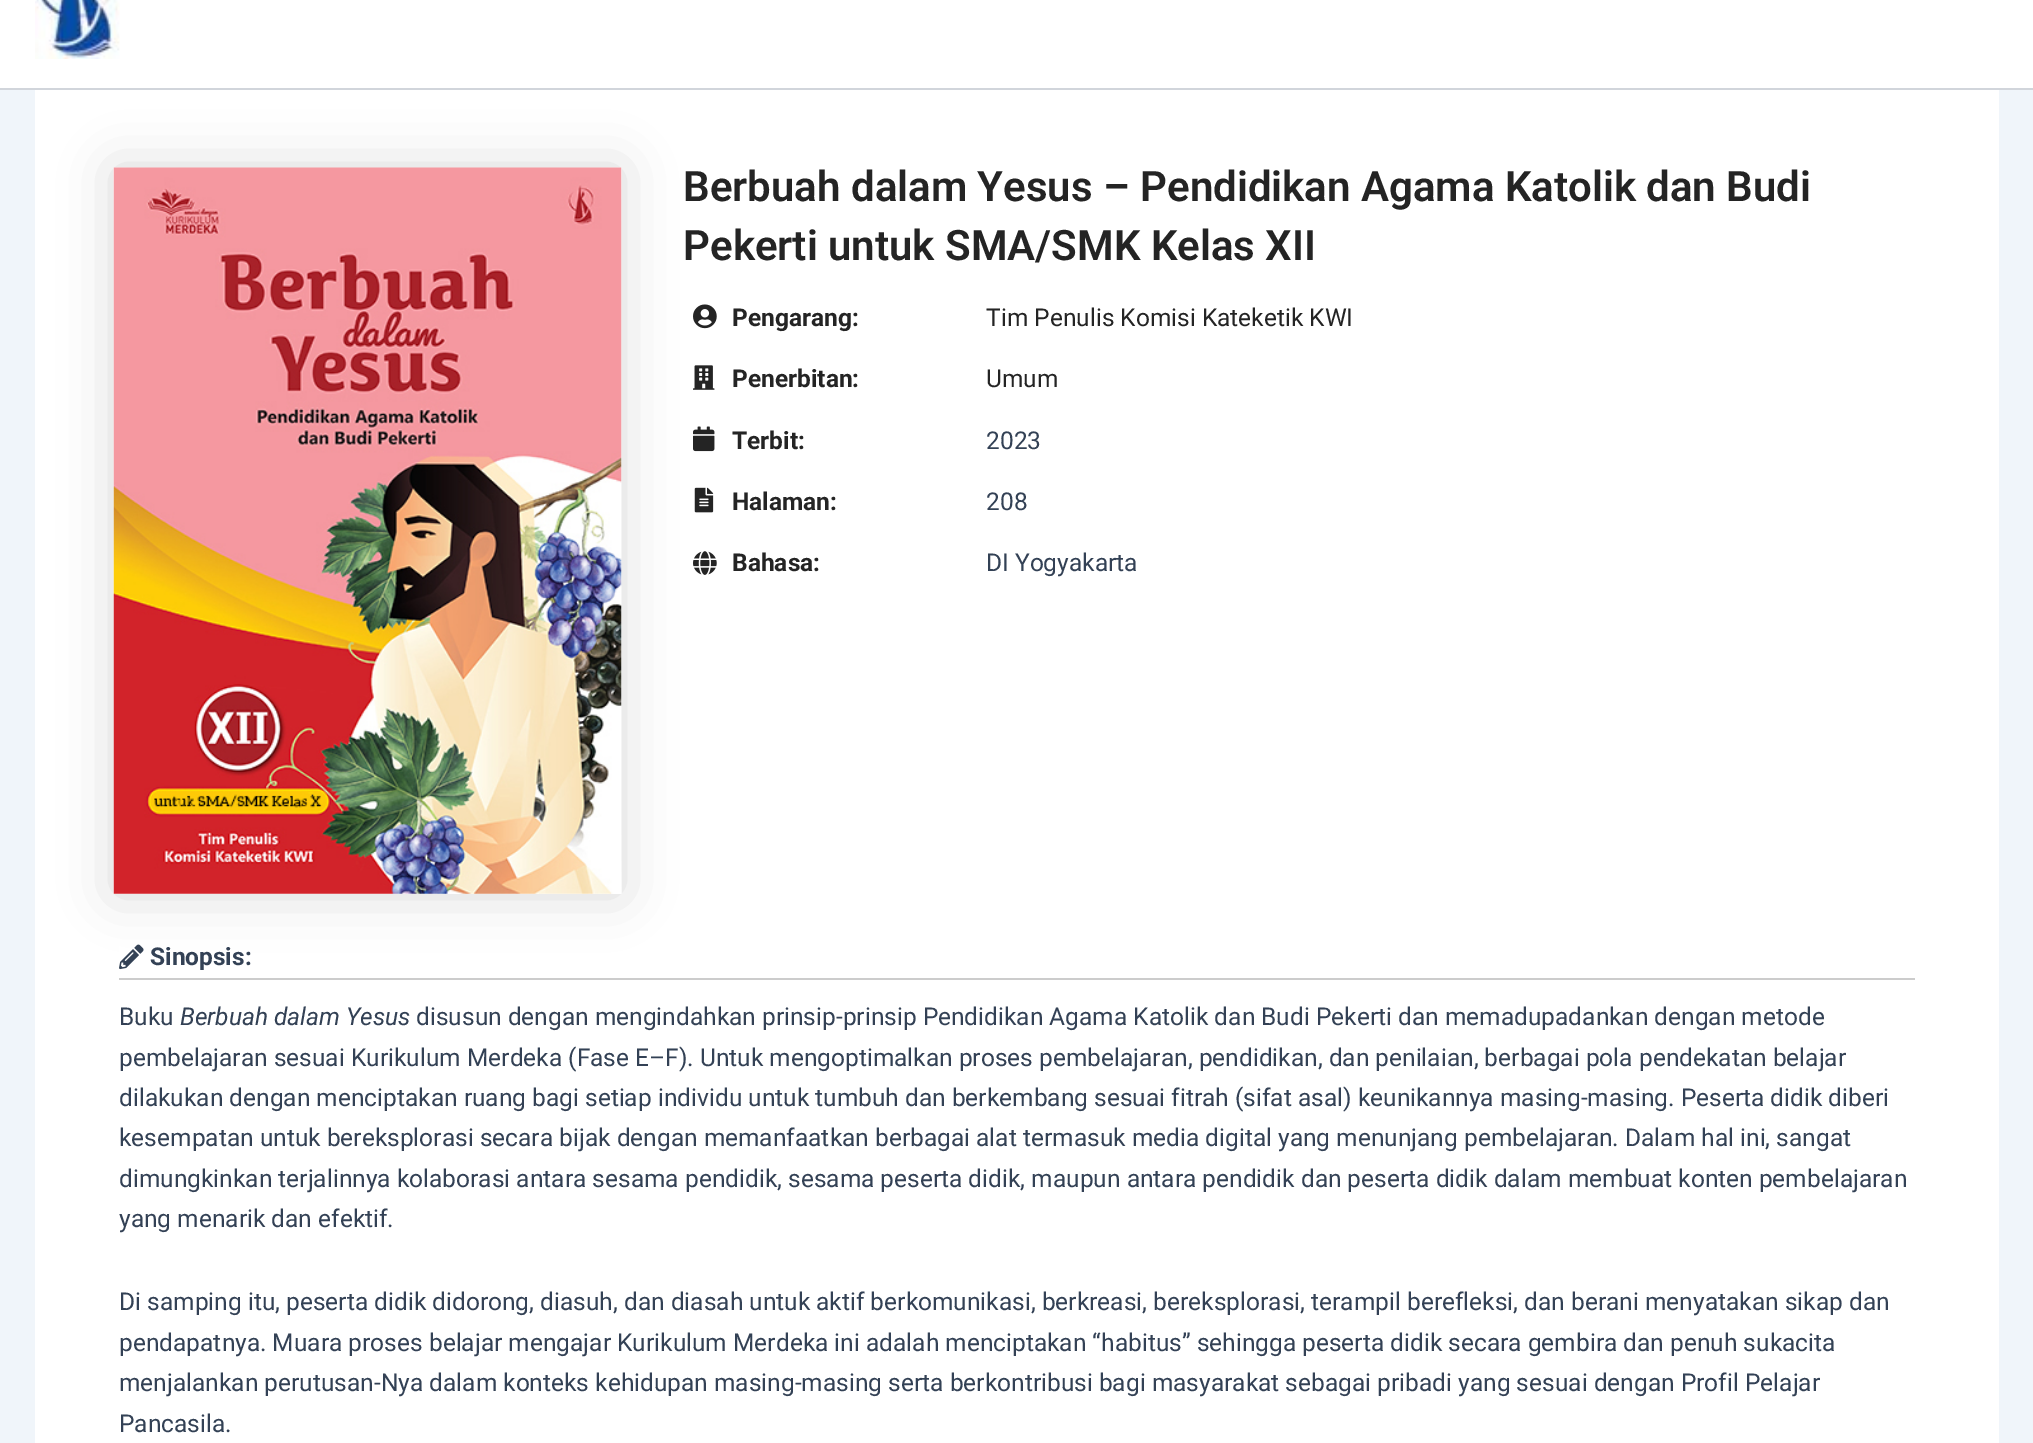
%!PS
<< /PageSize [2033 1443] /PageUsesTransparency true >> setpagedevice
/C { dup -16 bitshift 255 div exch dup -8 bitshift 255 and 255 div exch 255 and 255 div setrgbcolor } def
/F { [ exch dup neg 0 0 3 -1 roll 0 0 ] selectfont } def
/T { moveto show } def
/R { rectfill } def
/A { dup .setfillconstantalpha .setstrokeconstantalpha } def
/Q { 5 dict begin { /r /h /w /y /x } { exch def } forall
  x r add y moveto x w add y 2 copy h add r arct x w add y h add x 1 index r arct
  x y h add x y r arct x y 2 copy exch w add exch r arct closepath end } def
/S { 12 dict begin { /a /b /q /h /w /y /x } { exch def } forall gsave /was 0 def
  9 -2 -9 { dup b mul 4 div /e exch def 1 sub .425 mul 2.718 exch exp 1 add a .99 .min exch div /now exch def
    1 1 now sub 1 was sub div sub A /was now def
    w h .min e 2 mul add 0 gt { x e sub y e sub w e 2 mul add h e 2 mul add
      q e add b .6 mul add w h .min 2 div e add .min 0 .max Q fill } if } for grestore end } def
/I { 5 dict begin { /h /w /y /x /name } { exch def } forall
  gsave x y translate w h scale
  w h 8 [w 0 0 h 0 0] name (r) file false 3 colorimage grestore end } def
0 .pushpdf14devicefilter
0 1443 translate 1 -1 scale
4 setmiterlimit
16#F0F5FA C
0 0 2033 1443 R
16#FFFFFF C
0 0 2033 88 R
35 90 1964 1353 R
16#000000 C
114 168 507 726 0 26 .15 S
16#D1D5DB C
0 88 2033 2 R
(1.rgb) 35 0 85 59 I
(2.rgb) 113 167 509 727 I
/Roboto-SemiBold 42 F
16#242424 C
(Berbuah dalam Yesus – Pendidikan Agama Katolik dan Budi) 683 201 T
(Pekerti untuk SMA/SMK Kelas XII) 683 260 T
(3.rgb) 693 304 24 25 I
/Roboto-Bold 24.5 F
(Pengarang:) 732 326 T
/Roboto-Regular 24.5 F
(Tim Penulis Komisi Kateketik KWI) 986 326 T
(4.rgb) 693 365 22 25 I
/Roboto-Bold 24.5 F
(Penerbitan:) 732 387 T
/Roboto-Regular 24.5 F
(Umum) 986 387 T
(5.rgb) 693 426 22 26 I
/Roboto-Bold 24.5 F
(Terbit:) 732 449 T
/Roboto-Regular 24.5 F
16#334155 C
(2023) 986 449 T
(6.rgb) 694 487 20 26 I
/Roboto-Bold 24.5 F
16#242424 C
(Halaman:) 732 510 T
/Roboto-Regular 24.5 F
16#334155 C
(208) 986 510 T
(7.rgb) 693 551 24 24 I
/Roboto-Bold 24.5 F
16#242424 C
(Bahasa:) 732 571 T
/Roboto-Regular 24.5 F
16#334155 C
(DI Yogyakarta) 986 571 T
(8.rgb) 119 944 25 26 I
/Roboto-Bold 24.5 F
(Sinopsis:) 150 965 T
16#CCCCCC C
119 978 1796 2 R
/Roboto-Regular 24.5 F
16#334155 C
(Buku) 119 1025 T
/Roboto-Italic 24.5 F
(Berbuah dalam Yesus) 180 1025 T
/Roboto-Regular 24.5 F
(disusun dengan mengindahkan prinsip-prinsip Pendidikan Agama Katolik dan Budi Pekerti dan memadupadankan dengan metode) 416 1025 T
(pembelajaran sesuai Kurikulum Merdeka \(Fase E–F\). Untuk mengoptimalkan proses pembelajaran, pendidikan, dan penilaian, berbagai pola pendekatan belajar) 119 1066 T
(dilakukan dengan menciptakan ruang bagi setiap individu untuk tumbuh dan berkembang sesuai fitrah \(sifat asal\) keunikannya masing-masing. Peserta didik diberi) 119 1106 T
(kesempatan untuk bereksplorasi secara bijak dengan memanfaatkan berbagai alat termasuk media digital yang menunjang pembelajaran. Dalam hal ini, sangat) 119 1146 T
(dimungkinkan terjalinnya kolaborasi antara sesama pendidik, sesama peserta didik, maupun antara pendidik dan peserta didik dalam membuat konten pembelajaran) 119 1187 T
(yang menarik dan efektif.) 119 1227 T
(Di samping itu, peserta didik didorong, diasuh, dan diasah untuk aktif berkomunikasi, berkreasi, bereksplorasi, terampil berefleksi, dan berani menyatakan sikap dan) 119 1310 T
(pendapatnya. Muara proses belajar mengajar Kurikulum Merdeka ini adalah menciptakan “habitus” sehingga peserta didik secara gembira dan penuh sukacita) 119 1351 T
(menjalankan perutusan-Nya dalam konteks kehidupan masing-masing serta berkontribusi bagi masyarakat sebagai pribadi yang sesuai dengan Profil Pelajar) 119 1391 T
(Pancasila.) 119 1432 T
.poppdf14devicefilter showpage
